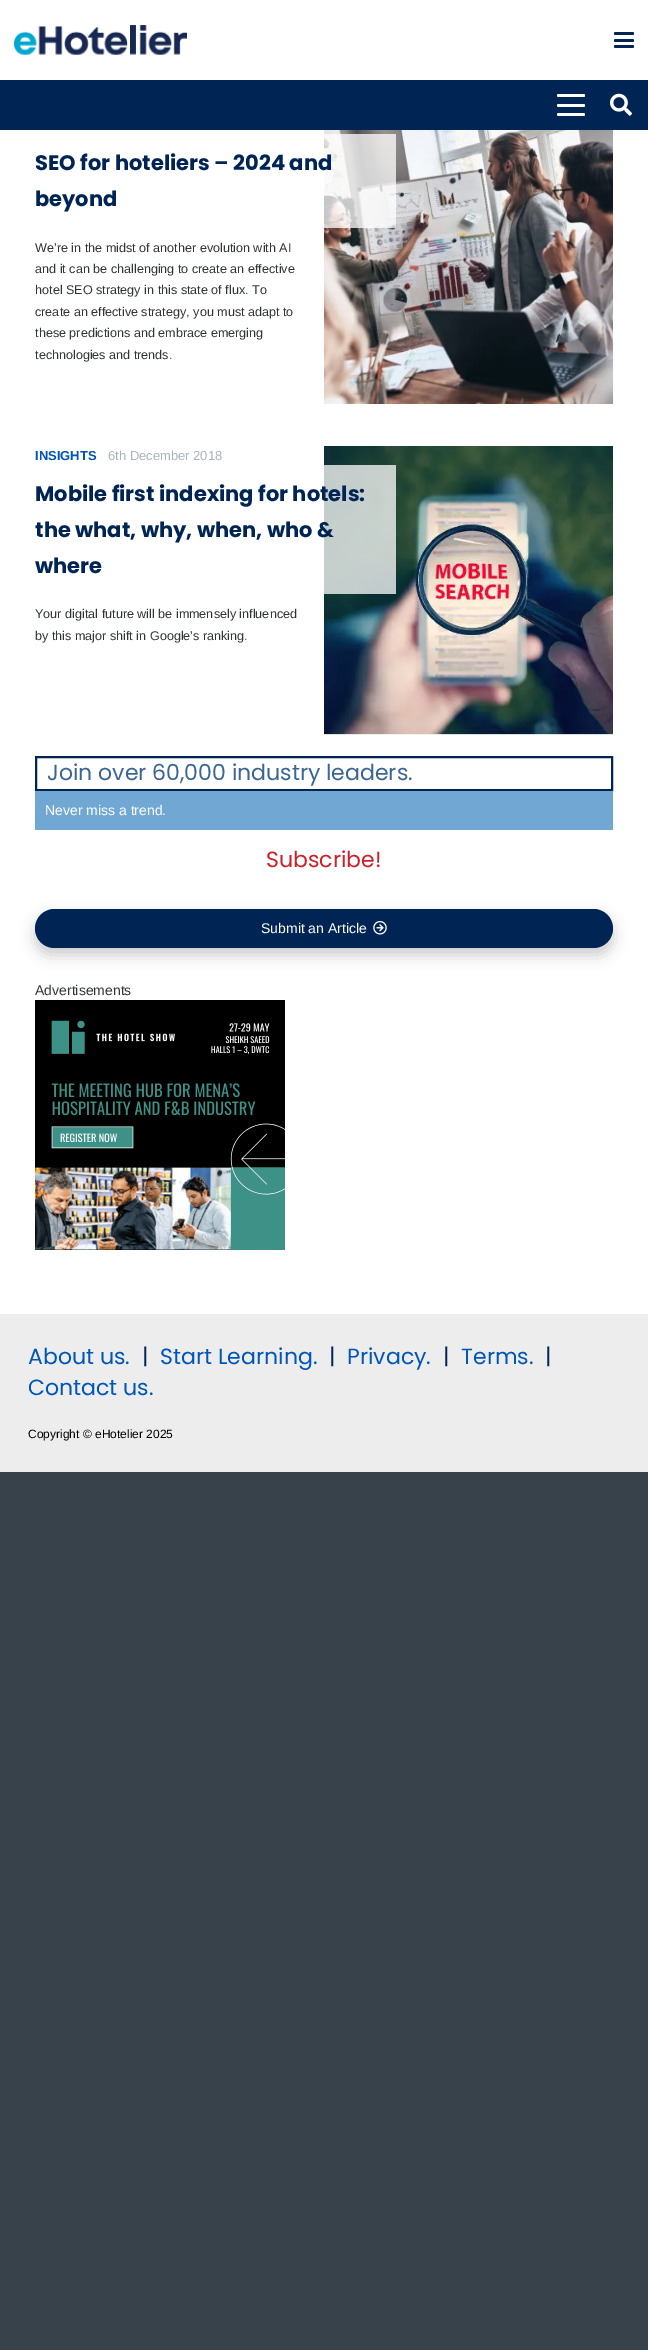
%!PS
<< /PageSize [648 2350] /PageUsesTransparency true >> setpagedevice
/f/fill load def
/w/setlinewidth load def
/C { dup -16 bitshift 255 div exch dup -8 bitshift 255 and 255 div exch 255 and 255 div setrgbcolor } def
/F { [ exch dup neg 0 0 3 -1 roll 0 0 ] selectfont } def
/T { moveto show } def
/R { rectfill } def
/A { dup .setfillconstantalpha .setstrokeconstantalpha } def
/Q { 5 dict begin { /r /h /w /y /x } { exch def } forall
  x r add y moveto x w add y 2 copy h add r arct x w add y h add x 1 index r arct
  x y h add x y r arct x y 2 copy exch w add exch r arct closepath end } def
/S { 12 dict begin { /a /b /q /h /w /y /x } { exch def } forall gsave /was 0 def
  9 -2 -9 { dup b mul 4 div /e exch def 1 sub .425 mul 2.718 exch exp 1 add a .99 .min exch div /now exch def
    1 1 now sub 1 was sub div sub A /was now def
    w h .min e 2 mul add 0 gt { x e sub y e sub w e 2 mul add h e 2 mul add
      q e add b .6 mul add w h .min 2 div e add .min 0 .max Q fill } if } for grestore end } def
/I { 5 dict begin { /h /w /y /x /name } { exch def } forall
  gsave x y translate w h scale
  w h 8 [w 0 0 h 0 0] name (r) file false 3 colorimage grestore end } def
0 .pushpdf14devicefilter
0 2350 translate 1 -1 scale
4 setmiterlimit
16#38424A C
0 0 648 2350 R
16#FFFFFF C
0 0 648 1314 R
(1.rgb) 14 25 173 30 I
16#002554 C
614 39 20 3 1.5 Q f
614 32 20 3 1.5 Q f
614 45 20 3 1.5 Q f
0 80 648 50 R
16#FFFFFF C
557 104 28 3 1.5 Q f
557 94 28 3 1.5 Q f
557 113 28 3 1.5 Q f
(2.rgb) 610 93 22 23 I
(3.rgb) 324 130 289 274 I
0.75 A
324 134 72 94 R
/Poppins-Bold 21 F
1 A
16#002554 C
(SEO for hoteliers – 2024 and) 35 170 T
(beyond) 35 206 T
/LiberationSans-Regular 12.6 F
16#313537 C
(We’re in the midst of another evolution with AI) 35 252 T
(and it can be challenging to create an effective) 35 273 T
(hotel SEO strategy in this state of flux. To) 35 294 T
(create an effective strategy, you must adapt to) 35 316 T
(these predictions and embrace emerging) 35 337 T
(technologies and trends.) 35 359 T
/LiberationSans-Bold 13 F
16#0055B8 C
(INSIGHTS) 35 460 T
/LiberationSans-Regular 13 F
16#AAB2BD C
(6th December 2018) 108 460 T
(4.rgb) 324 446 289 289 I
0.75 A
16#FFFFFF C
324 465 72 129 R
/Poppins-Bold 21 F
1 A
16#002554 C
(Mobile first indexing for hotels:) 35 501 T
(the what, why, when, who &) 35 537 T
(where) 35 573 T
/LiberationSans-Regular 12.6 F
16#313537 C
(Your digital future will be immensely influenced) 35 618 T
(by this major shift in Google’s ranking.) 35 640 T
16#002554 C
2 w
36 757 576 33 rectstroke
/Poppins-Regular 22 F
16#3B6594 C
(Join over 60,000 industry leaders.) 47 780 T
16#71A7D3 C
35 791 578 39 R
/LiberationSans-Regular 14 F
16#FFFFFF C
(Never miss a trend.) 45 815 T
/Poppins-Regular 22 F
16#CC202A C
(Subscribe!) 266 867 T
16#000000 C
35 916 578 39 19.5 7 .2 S
16#002554 C
35 909 578 39 19.5 Q f
/LiberationSans-Regular 14 F
16#FFFFFF C
(Submit an Article) 261 933 T
(5.rgb) 373 921 14 14 I
16#313537 C
(Advertisements) 35 995 T
(6.rgb) 35 1000 250 250 I
16#EDEDED C
0 1314 648 158 R
/Poppins-Regular 22 F
16#0055B8 C
(About us.) 28 1364 T
16#002554 C
(|) 142 1364 T
16#0055B8 C
(Start Learning.) 160 1364 T
16#002554 C
(|) 329 1364 T
16#0055B8 C
(Privacy.) 347 1364 T
16#002554 C
(|) 443 1364 T
16#0055B8 C
(Terms.) 461 1364 T
16#002554 C
(|) 545 1364 T
16#0055B8 C
(Contact us.) 28 1395 T
/LiberationSans-Regular 12 F
16#000000 C
(Copyright © eHotelier 2025) 28 1438 T
.poppdf14devicefilter showpage
